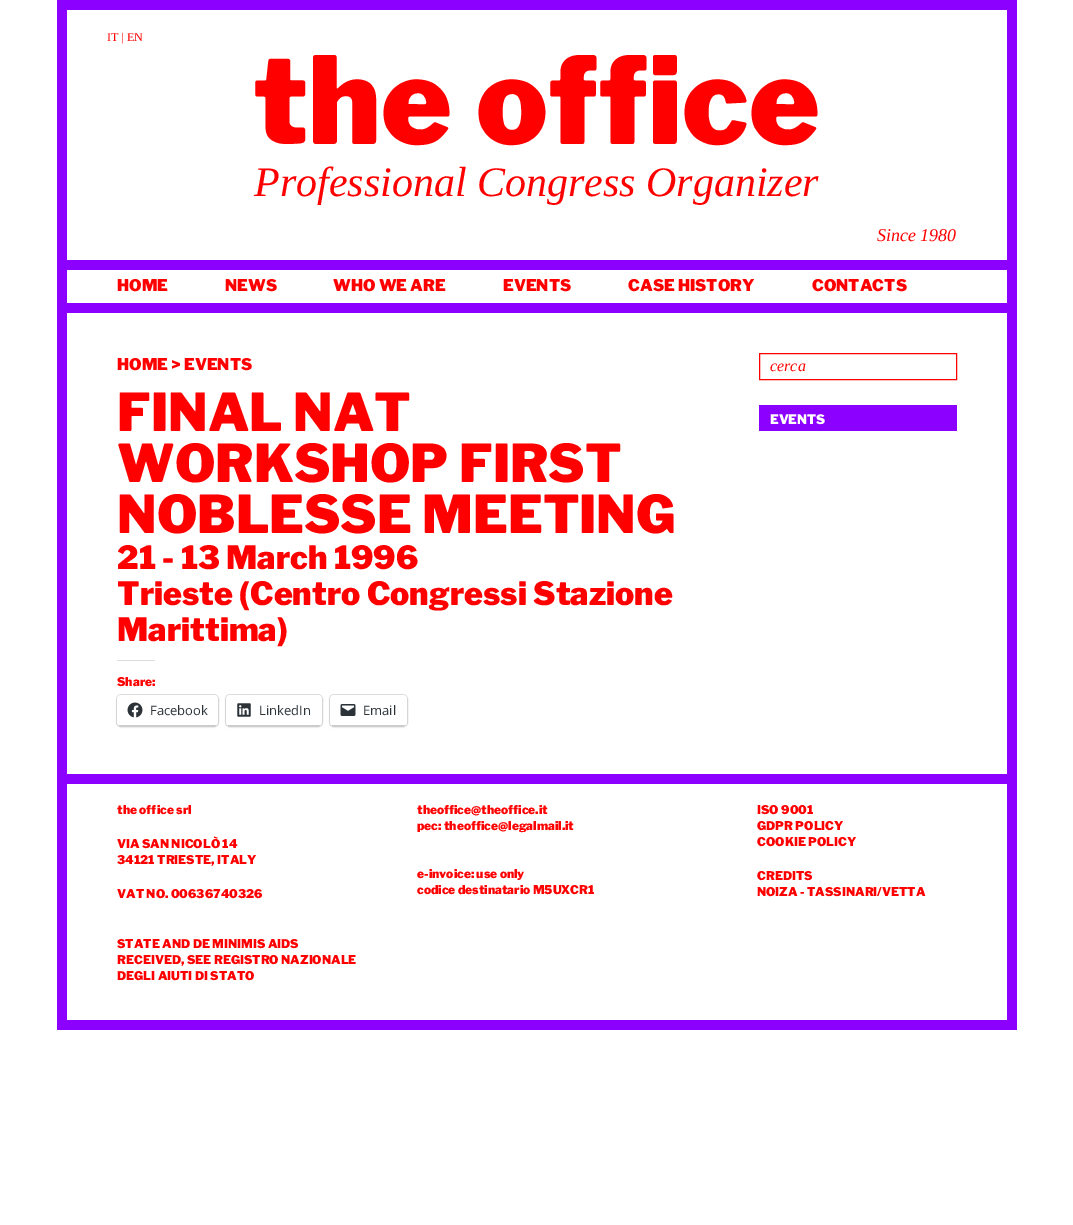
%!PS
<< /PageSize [1073 1225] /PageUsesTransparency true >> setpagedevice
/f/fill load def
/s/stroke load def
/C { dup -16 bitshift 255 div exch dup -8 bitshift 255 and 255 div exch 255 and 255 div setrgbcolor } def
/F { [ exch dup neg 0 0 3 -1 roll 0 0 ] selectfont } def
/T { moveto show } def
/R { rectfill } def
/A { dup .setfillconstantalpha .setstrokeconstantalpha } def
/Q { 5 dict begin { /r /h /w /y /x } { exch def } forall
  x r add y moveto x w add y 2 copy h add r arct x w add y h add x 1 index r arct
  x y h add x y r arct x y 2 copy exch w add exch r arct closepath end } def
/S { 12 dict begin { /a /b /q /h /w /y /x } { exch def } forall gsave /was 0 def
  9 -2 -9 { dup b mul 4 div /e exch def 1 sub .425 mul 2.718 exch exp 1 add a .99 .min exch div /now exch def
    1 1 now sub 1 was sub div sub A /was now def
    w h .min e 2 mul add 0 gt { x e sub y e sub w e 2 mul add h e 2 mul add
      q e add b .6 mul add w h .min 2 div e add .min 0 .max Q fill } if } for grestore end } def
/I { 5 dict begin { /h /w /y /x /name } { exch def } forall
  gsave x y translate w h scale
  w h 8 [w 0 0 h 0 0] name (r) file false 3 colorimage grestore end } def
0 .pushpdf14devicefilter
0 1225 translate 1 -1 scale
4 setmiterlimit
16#FFFFFF C
0 0 1073 1225 R
16#8C00FF C
57 0 960 1030 R
16#FFFFFF C
67 10 940 250 R
/LiberationSerif-Regular 12 F
16#FF0000 C
(IT | EN) 107 41 T
/LibreFranklin-Thin 120 F
(the office) 253 144 T
/LiberationSerif-Italic 42 F
(Professional Congress Organizer) 254 196 T
/LiberationSerif-Italic 18 F
(Since 1980) 877 241 T
16#FFFFFF C
67 270 940 33 R
/LibreFranklin-Thin 16 F
16#FF0000 C
(HOME) 117 291 T
(NEWS) 225 291 T
(WHO WE ARE) 333 291 T
(EVENTS) 503 291 T
(CASE HISTORY) 628 291 T
(CONTACTS) 812 291 T
16#FFFFFF C
67 313 940 461 R
16#FF0000 C
(HOME > EVENTS) 117 370 T
/LibreFranklin-Thin 52 F
(FINAL NAT) 117 431 T
(WORKSHOP FIRST) 117 482 T
(NOBLESSE MEETING) 117 533 T
/LibreFranklin-Thin 32 F
(21 - 13 March 1996) 117 569 T
(Trieste \(Centro Congressi Stazione) 117 605 T
(Marittima\)) 117 641 T
16#DCDCDE C
117 660 38 1 R
/LibreFranklin-Thin 12 F
16#FF0000 C
(Share:) 117 686 T
16#E0E0E0 C
116.5 694.5 102 32 4.5 Q s
16#000000 C
117 696 101 31 4 1 .12 S
16#FFFFFF C
117 695 101 31 4 Q f
16#CCCCCC C
119 725 97 1 R
(1.rgb) 127 702 16 16 I
/OpenSans-Regular 13 F
16#2C3338 C
(Facebook) 150 715 T
16#E0E0E0 C
225.5 694.5 97 32 4.5 Q s
16#000000 C
226 696 96 31 4 1 .12 S
16#FFFFFF C
226 695 96 31 4 Q f
16#CCCCCC C
228 725 92 1 R
(2.rgb) 237 703 14 14 I
16#2C3338 C
(LinkedIn) 259 715 T
16#E0E0E0 C
329.5 694.5 78 32 4.5 Q s
16#000000 C
330 696 77 31 4 1 .12 S
16#FFFFFF C
330 695 77 31 4 Q f
16#CCCCCC C
332 725 73 1 R
(3.rgb) 340 704 16 12 I
16#2C3338 C
(Email) 363 715 T
16#FF0000 C
759.5 353.5 197 26 rectstroke
/LiberationSerif-Italic 16 F
(cerca) 770 371 T
16#8C00FF C
759 405 198 26 R
/LibreFranklin-Thin 13 F
16#FFFFFF C
(EVENTS) 770 424 T
67 784 940 236 R
/LibreFranklin-Thin 12 F
16#FF0000 C
(the office srl) 117 814 T
(VIA SAN NICOLÒ 14) 117 848 T
(34121 TRIESTE, ITALY) 117 864 T
(VAT NO. 00636740326) 117 898 T
(STATE AND DE MINIMIS AIDS) 117 948 T
(RECEIVED, SEE REGISTRO NAZIONALE) 117 964 T
(DEGLI AIUTI DI STATO) 117 980 T
(theoffice@theoffice.it) 417 814 T
(pec: theoffice@legalmail.it) 417 830 T
(e-invoice: use only) 417 878 T
(codice destinatario M5UXCR1) 417 894 T
(ISO 9001) 757 814 T
(GDPR POLICY) 757 830 T
(COOKIE POLICY) 757 846 T
(CREDITS) 757 880 T
(NOIZA - TASSINARI/VETTA) 757 896 T
.poppdf14devicefilter showpage
